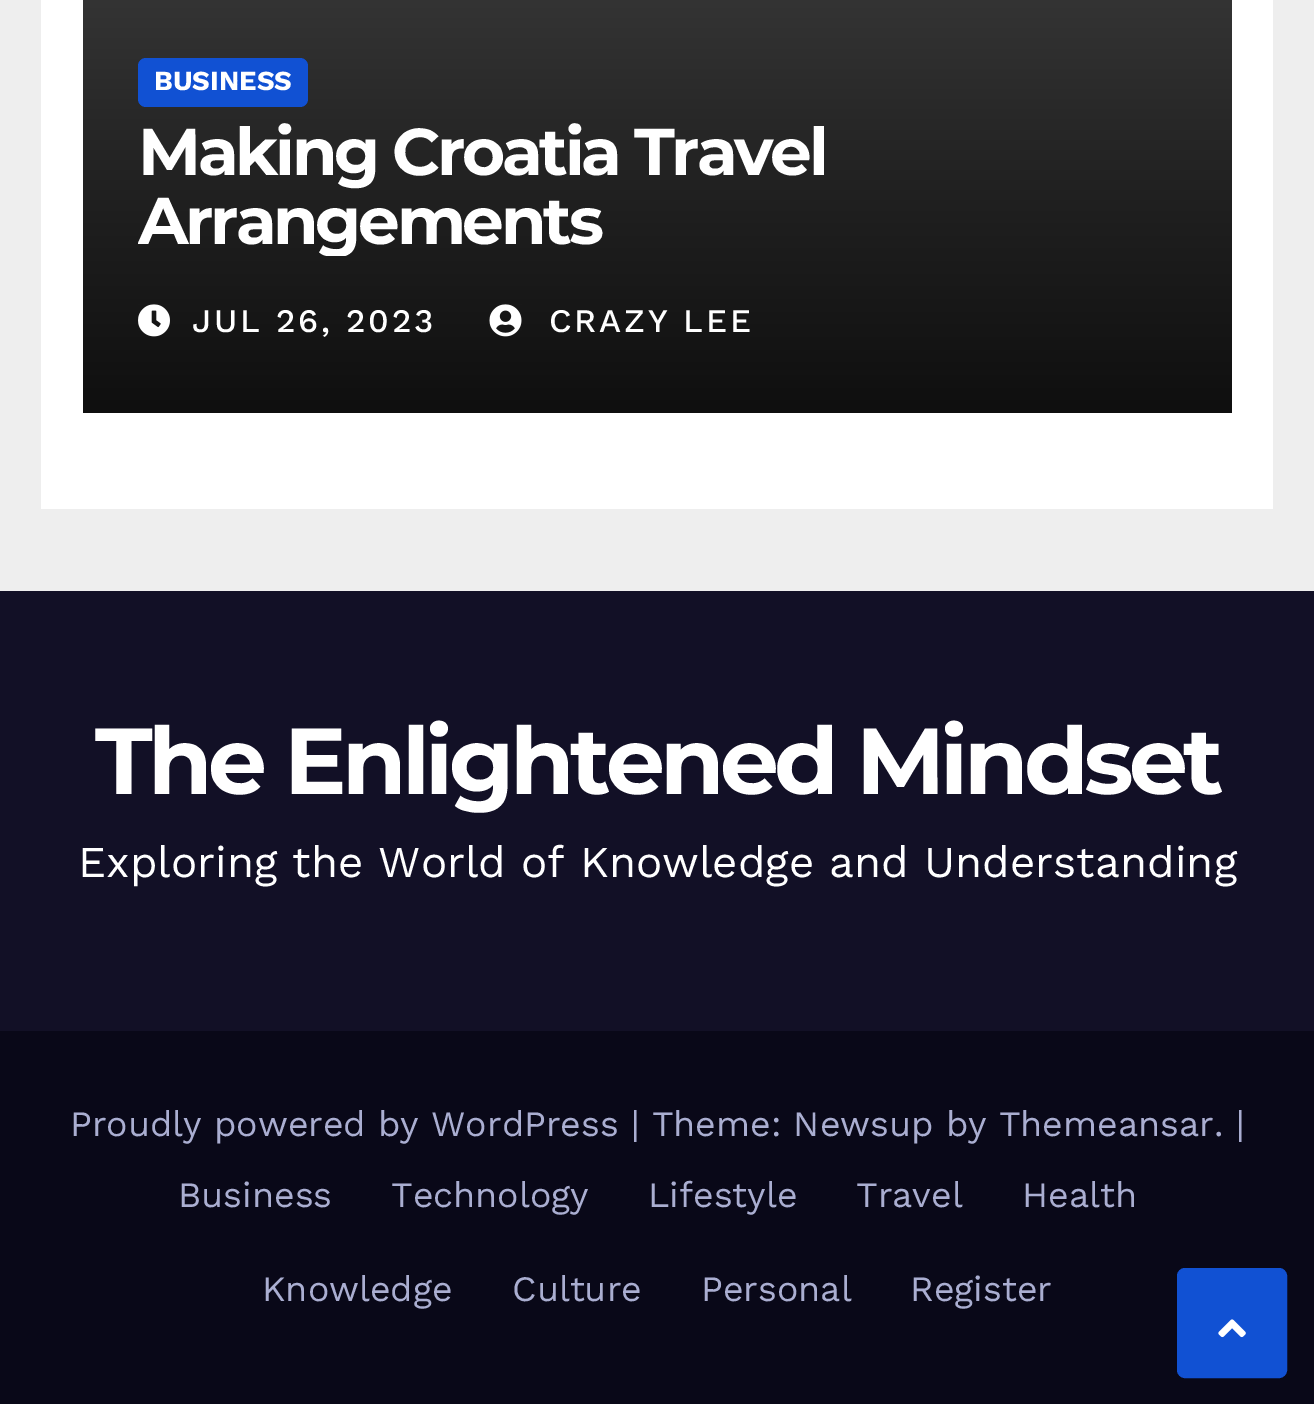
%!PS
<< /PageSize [1314 1404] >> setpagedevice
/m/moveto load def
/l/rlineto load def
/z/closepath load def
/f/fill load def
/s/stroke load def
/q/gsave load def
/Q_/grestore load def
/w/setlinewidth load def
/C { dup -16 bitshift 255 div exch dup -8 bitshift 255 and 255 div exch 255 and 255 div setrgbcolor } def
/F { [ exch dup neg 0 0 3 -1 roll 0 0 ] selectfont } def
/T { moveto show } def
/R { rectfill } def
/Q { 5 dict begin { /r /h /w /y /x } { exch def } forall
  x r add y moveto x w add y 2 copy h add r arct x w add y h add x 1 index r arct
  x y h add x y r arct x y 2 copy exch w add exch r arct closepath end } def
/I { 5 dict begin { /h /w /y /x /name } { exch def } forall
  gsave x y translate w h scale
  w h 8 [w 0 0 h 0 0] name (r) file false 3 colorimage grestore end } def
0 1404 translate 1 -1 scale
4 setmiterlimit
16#EEEEEE C
0 0 1314 1404 R
16#FFFFFF C
41 0 1232 509 R
16#333333 C
83 0 1149 8 R
q 83 8 m 1149 0 l 0 405 l -1149 0 l z clip newpath
<< /ShadingType 2 /ColorSpace /DeviceRGB /Coords [657 8 657 413] /Extend [true true] /Function << /FunctionType 3 /Domain [0 1] /Functions [<< /FunctionType 2 /Domain [0 1] /C0 [.2 .2 .2] /C1 [.122 .122 .122] /N 1 >> << /FunctionType 2 /Domain [0 1] /C0 [.122 .122 .122] /C1 [.059 .059 .059] /N 1 >>] /Bounds [.5] /Encode [0 1 0 1] >> >> shfill Q_
16#1151D3 C
138 58 170 49 8 Q f
/WorkSans-Bold 27.5 F
16#FFFFFF C
(BUSINESS) 154 90 T
/Montserrat-Bold 66 F
138 175 m -3.3 0 (Making Croatia Travel) ashow
q
138 118 1039 138 rectclip
138 244 m -3.3 0 (Arrangements) ashow
Q_
(1.rgb) 138 304 32 33 I
/WorkSans-Medium 33 F
192 332 m 2.75 0 (JUL 26, 2023) ashow
(2.rgb) 489 304 33 33 I
549 332 m 2.75 0 (CRAZY LEE) ashow
16#121026 C
0 591 1314 440 R
/Montserrat-Bold 93.5 F
16#FFFFFF C
95 794 m -4.7 0 (The Enlightened Mindset) ashow
/WorkSans-Regular 44 F
(Exploring the World of Knowledge and Understanding) 78 877 T
16#090818 C
0 1031 1314 373 R
/WorkSans-Regular 35.75 F
16#AAAED1 C
(Proudly powered by WordPress | Theme: Newsup by Themeansar. |) 70 1136 T
(Business) 178 1207 T
(Technology) 391 1207 T
(Lifestyle) 648 1207 T
(Travel) 856 1207 T
(Health) 1022 1207 T
(Knowledge) 262 1301 T
(Culture) 512 1301 T
(Personal) 701 1301 T
(Register) 910 1301 T
16#1151D3 C
1180 1271 104 104 5 Q q f Q_
6 w
s
(3.rgb) 1218 1319 28 19 I
showpage
